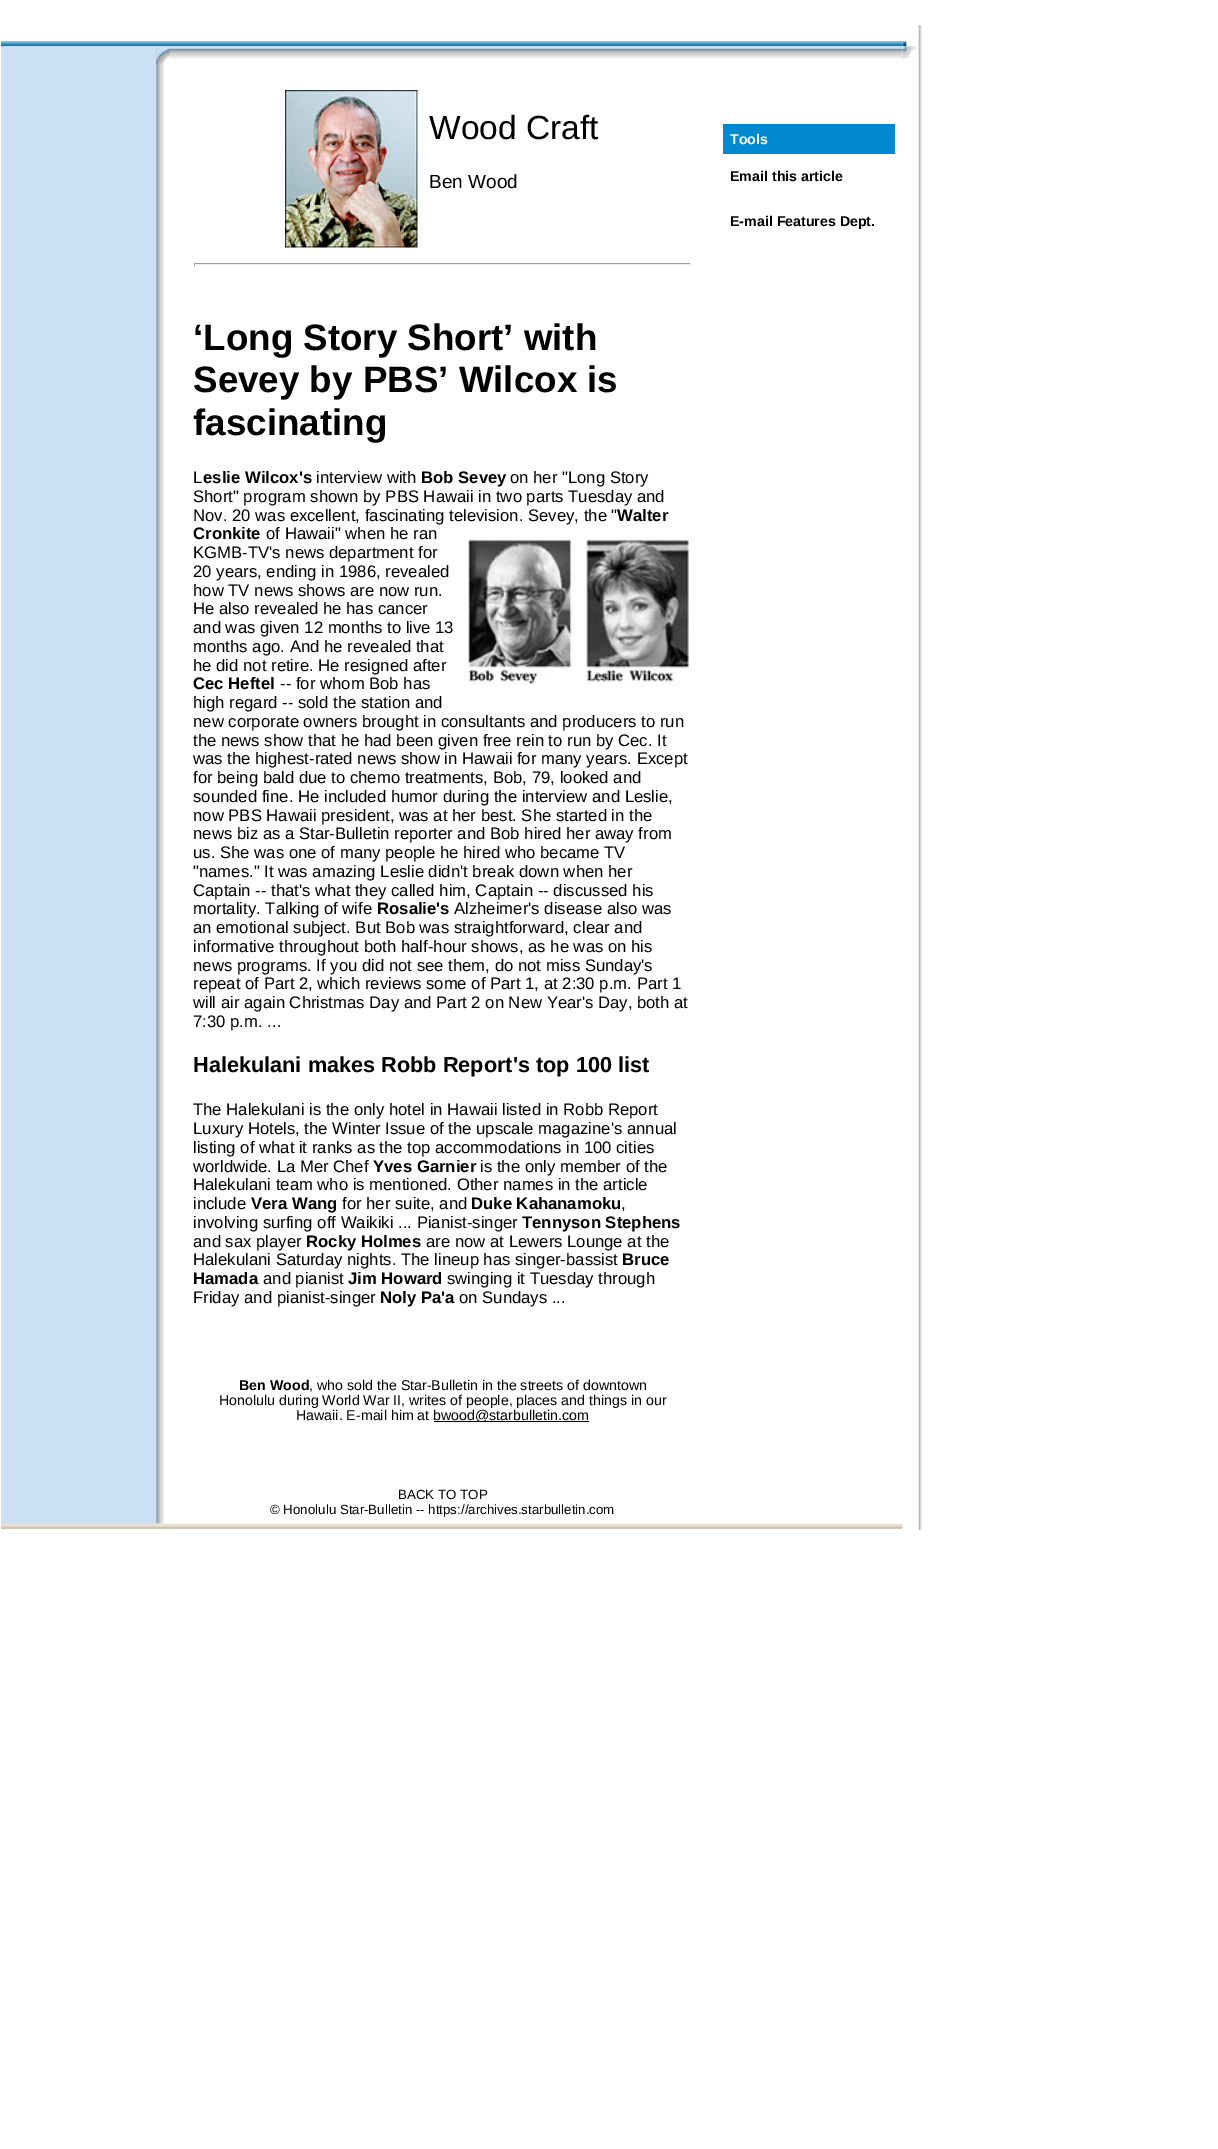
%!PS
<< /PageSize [1218 2149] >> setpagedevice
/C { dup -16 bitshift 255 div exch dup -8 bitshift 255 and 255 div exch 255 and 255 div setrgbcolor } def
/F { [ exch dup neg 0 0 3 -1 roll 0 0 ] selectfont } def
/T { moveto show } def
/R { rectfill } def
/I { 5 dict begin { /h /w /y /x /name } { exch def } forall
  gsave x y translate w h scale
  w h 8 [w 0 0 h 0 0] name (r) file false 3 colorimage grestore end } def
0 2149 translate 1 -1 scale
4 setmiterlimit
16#FFFFFF C
0 0 1218 2149 R
(1.rgb) 1 41 902 5 I
16#CBE0F5 C
1 46 902 3 R
(2.rgb) 1 41 3 6 I
(4.rgb) 903 46 13 3 I
(3.rgb) 902 41 7 6 I
(8.rgb) 170 48 733 11 I
(5.rgb) 902 46 15 3 I
1 49 155 1475 R
(6.rgb) 156 48 8 1476 I
(7.rgb) 156 48 14 16 I
(9.rgb) 285 90 133 158 I
/LiberationSans-Regular 33.5 F
16#000000 C
(Wood Craft) 429 139 T
/LiberationSans-Regular 19 F
(Ben Wood) 429 188 T
16#9F9F9F C
194 263 497 1 R
16#EEEEEE C
690 263 1 3 R
194 264 497 1 R
16#9F9F9F C
194 263 1 3 R
/LiberationSans-Bold 36.75 F
16#000000 C
(‘Long Story Short’ with) 193 350 T
(Sevey by PBS’ Wilcox is) 193 392 T
(fascinating) 193 435 T
/LiberationSans-Regular 16.7 F
(L) 193 483 T
/LiberationSans-Bold 16.7 F
(eslie Wilcox's) 203 483 T
/LiberationSans-Regular 16.7 F
(interview with) 316 483 T
/LiberationSans-Bold 16.7 F
(Bob Sevey) 421 483 T
/LiberationSans-Regular 16.7 F
(on her "Long Story) 510 483 T
(Short" program shown by PBS Hawaii in two parts Tuesday and) 193 502 T
(Nov. 20 was excellent, fascinating television. Sevey, the ") 193 521 T
/LiberationSans-Bold 16.7 F
(Walter) 617 521 T
(Cronkite) 193 539 T
/LiberationSans-Regular 16.7 F
(of Hawaii" when he ran) 266 539 T
(KGMB-TV's news department for) 193 558 T
(10.rgb) 466 538 224 148 I
(20 years, ending in 1986, revealed) 193 577 T
(how TV news shows are now run.) 193 596 T
(He also revealed he has cancer) 193 614 T
(and was given 12 months to live 13) 193 633 T
(months ago. And he revealed that) 193 652 T
(he did not retire. He resigned after) 193 671 T
/LiberationSans-Bold 16.7 F
(Cec Heftel) 193 689 T
/LiberationSans-Regular 16.7 F
(-- for whom Bob has) 280 689 T
(high regard -- sold the station and) 193 708 T
(new corporate owners brought in consultants and producers to run) 193 727 T
(the news show that he had been given free rein to run by Cec. It) 193 746 T
(was the highest-rated news show in Hawaii for many years. Except) 193 764 T
(for being bald due to chemo treatments, Bob, 79, looked and) 193 783 T
(sounded fine. He included humor during the interview and Leslie,) 193 802 T
(now PBS Hawaii president, was at her best. She started in the) 193 821 T
(news biz as a Star-Bulletin reporter and Bob hired her away from) 193 839 T
(us. She was one of many people he hired who became TV) 193 858 T
("names." It was amazing Leslie didn't break down when her) 193 877 T
(Captain -- that's what they called him, Captain -- discussed his) 193 896 T
(mortality. Talking of wife) 193 914 T
/LiberationSans-Bold 16.7 F
(Rosalie's) 377 914 T
/LiberationSans-Regular 16.7 F
(Alzheimer's disease also was) 454 914 T
(an emotional subject. But Bob was straightforward, clear and) 193 933 T
(informative throughout both half-hour shows, as he was on his) 193 952 T
(news programs. If you did not see them, do not miss Sunday's) 193 971 T
(repeat of Part 2, which reviews some of Part 1, at 2:30 p.m. Part 1) 193 989 T
(will air again Christmas Day and Part 2 on New Year's Day, both at) 193 1008 T
(7:30 p.m. ...) 193 1027 T
/LiberationSans-Bold 21.7 F
(Halekulani makes Robb Report's top 100 list) 193 1072 T
/LiberationSans-Regular 16.7 F
(The Halekulani is the only hotel in Hawaii listed in Robb Report) 193 1115 T
(Luxury Hotels, the Winter Issue of the upscale magazine's annual) 193 1134 T
(listing of what it ranks as the top accommodations in 100 cities) 193 1153 T
(worldwide. La Mer Chef) 193 1172 T
/LiberationSans-Bold 16.7 F
(Yves Garnier) 373 1172 T
/LiberationSans-Regular 16.7 F
(is the only member of the) 480 1172 T
(Halekulani team who is mentioned. Other names in the article) 193 1190 T
(include) 193 1209 T
/LiberationSans-Bold 16.7 F
(Vera Wang) 251 1209 T
/LiberationSans-Regular 16.7 F
(for her suite, and) 342 1209 T
/LiberationSans-Bold 16.7 F
(Duke Kahanamoku) 471 1209 T
/LiberationSans-Regular 16.7 F
(,) 621 1209 T
(involving surfing off Waikiki ... Pianist-singer) 193 1228 T
/LiberationSans-Bold 16.7 F
(Tennyson Stephens) 522 1228 T
/LiberationSans-Regular 16.7 F
(and sax player) 193 1247 T
/LiberationSans-Bold 16.7 F
(Rocky Holmes) 306 1247 T
/LiberationSans-Regular 16.7 F
(are now at Lewers Lounge at the) 426 1247 T
(Halekulani Saturday nights. The lineup has singer-bassist) 193 1265 T
/LiberationSans-Bold 16.7 F
(Bruce) 622 1265 T
(Hamada) 193 1284 T
/LiberationSans-Regular 16.7 F
(and pianist) 263 1284 T
/LiberationSans-Bold 16.7 F
(Jim Howard) 348 1284 T
/LiberationSans-Regular 16.7 F
(swinging it Tuesday through) 447 1284 T
(Friday and pianist-singer) 193 1303 T
/LiberationSans-Bold 16.7 F
(Noly Pa'a) 380 1303 T
/LiberationSans-Regular 16.7 F
(on Sundays ...) 459 1303 T
/LiberationSans-Bold 14.2 F
(Ben Wood) 239 1390 T
/LiberationSans-Regular 14.2 F
(, who sold the Star-Bulletin in the streets of downtown) 309 1390 T
(Honolulu during World War II, writes of people, places and things in our) 219 1405 T
(Hawaii. E-mail him at) 296 1420 T
434 1421 155 1 R
(bwood@starbulletin.com) 433 1420 T
/LiberationSans-Regular 13.3 F
(BACK TO TOP) 398 1499 T
(© Honolulu Star-Bulletin -- https://archives.starbulletin.com) 270 1514 T
16#0088D1 C
723 124 172 30 R
/LiberationSans-Bold 14.2 F
16#FFFFFF C
(Tools) 730 144 T
16#000000 C
(Email this article) 730 181 T
(E-mail Features Dept.) 730 226 T
(11.rgb) 902 48 12 11 I
(12.rgb) 1 1523 902 6 I
(13.rgb) 1 1523 3 6 I
(14.rgb) 918 25 4 1505 I
showpage
